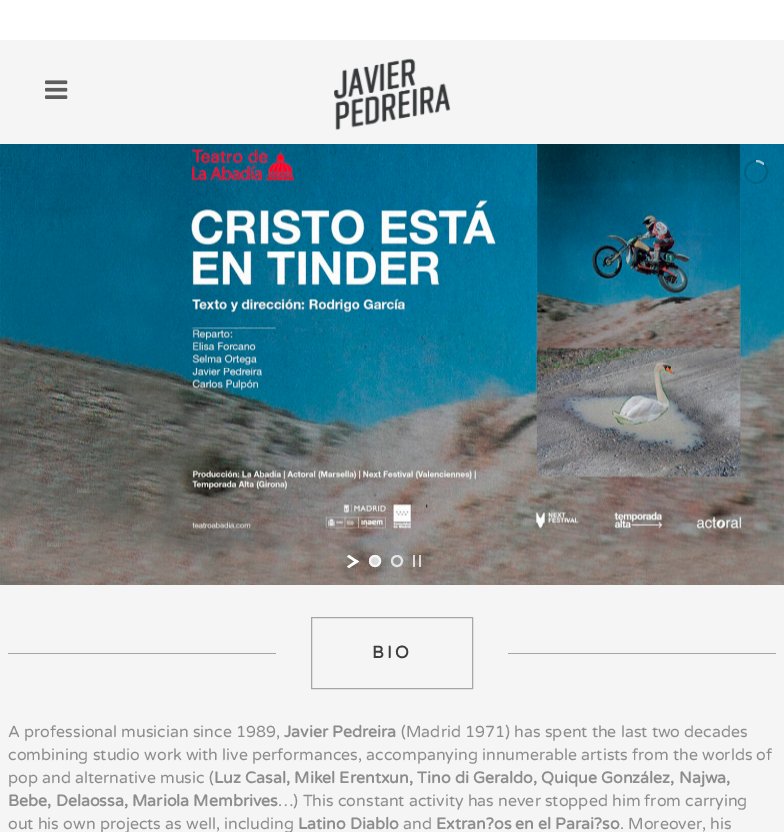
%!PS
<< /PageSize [784 832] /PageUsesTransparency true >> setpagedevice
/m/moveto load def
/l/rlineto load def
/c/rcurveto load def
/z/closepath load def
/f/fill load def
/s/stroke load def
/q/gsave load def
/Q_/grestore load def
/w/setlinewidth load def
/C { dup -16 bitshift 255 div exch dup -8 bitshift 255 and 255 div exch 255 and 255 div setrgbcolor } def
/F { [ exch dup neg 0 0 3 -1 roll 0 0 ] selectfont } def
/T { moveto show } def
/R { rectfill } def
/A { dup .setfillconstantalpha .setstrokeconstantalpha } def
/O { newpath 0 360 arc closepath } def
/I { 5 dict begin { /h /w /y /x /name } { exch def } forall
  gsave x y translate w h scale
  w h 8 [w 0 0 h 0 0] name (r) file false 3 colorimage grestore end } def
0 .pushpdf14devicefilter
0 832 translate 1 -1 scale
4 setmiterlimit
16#F5F5F5 C
0 0 784 832 R
16#FFFFFF C
0 0 784 40 R
(1.rgb) 45 80 23 19 I
(2.rgb) 334 58 117 72 I
(3.rgb) 0 144 784 441 I
0.13 A
16#000000 C
2 w
756 172 11 O s
q
756 160 12 24 rectclip
755.5 155 m 8.5 8 l -16 18 l -9 -8.5 l z clip newpath
0.65 A
16#FFFFFF C
763.5 164 m 10.5 9.5 -4.5 26 -15 16 c -10.5 -9.5 4.5 -26 15 -16 c z s
Q_
1 A
16#FFFFFF C
349 555 m 10 6.5 l -2.5 1.5 l -9.5 -6.5 l z f
356.5 560 m 2.5 1.5 l -10 6.5 l -2 -1.5 l z f
0.75 A
375 561 6 O f
375 561 5 O s
397 561 5 O s
419 555 2 12 R
413 555 2 12 R
1 A
16#A6A6A6 C
8 653 768 1 R
16#F5F5F5 C
276 653 232 1 R
16#A6A6A6 C
1 w
311.5 617.5 161 71 rectstroke
/VarelaRound-Bold 17 F
16#3E3E3E C
372 658 m 3 0 (BIO) ashow
/VarelaRound-Regular 16 F
16#8D8D8D C
(A professional musician since 1989,) 8 737 T
/VarelaRound-Bold 16 F
(Javier Pedreira) 284 737 T
/VarelaRound-Regular 16 F
(\(Madrid 1971\) has spent the last two decades) 401 737 T
(combining studio work with live performances, accompanying innumerable artists from the worlds of) 8 760 T
(pop and alternative music \() 8 783 T
/VarelaRound-Bold 16 F
(Luz Casal, Mikel Erentxun, Tino di Geraldo, Quique González, Najwa,) 214 783 T
(Bebe, Delaossa, Mariola Membrives) 8 806 T
/VarelaRound-Regular 16 F
(…\) This constant activity has never stopped him from carrying) 278 806 T
(out his own projects as well, including) 8 829 T
/VarelaRound-Bold 16 F
(Latino Diablo) 298 829 T
/VarelaRound-Regular 16 F
(and) 403 829 T
/VarelaRound-Bold 16 F
(Extran?os en el Parai?so) 436 829 T
/VarelaRound-Regular 16 F
(. Moreover, his) 620 829 T
.poppdf14devicefilter showpage
